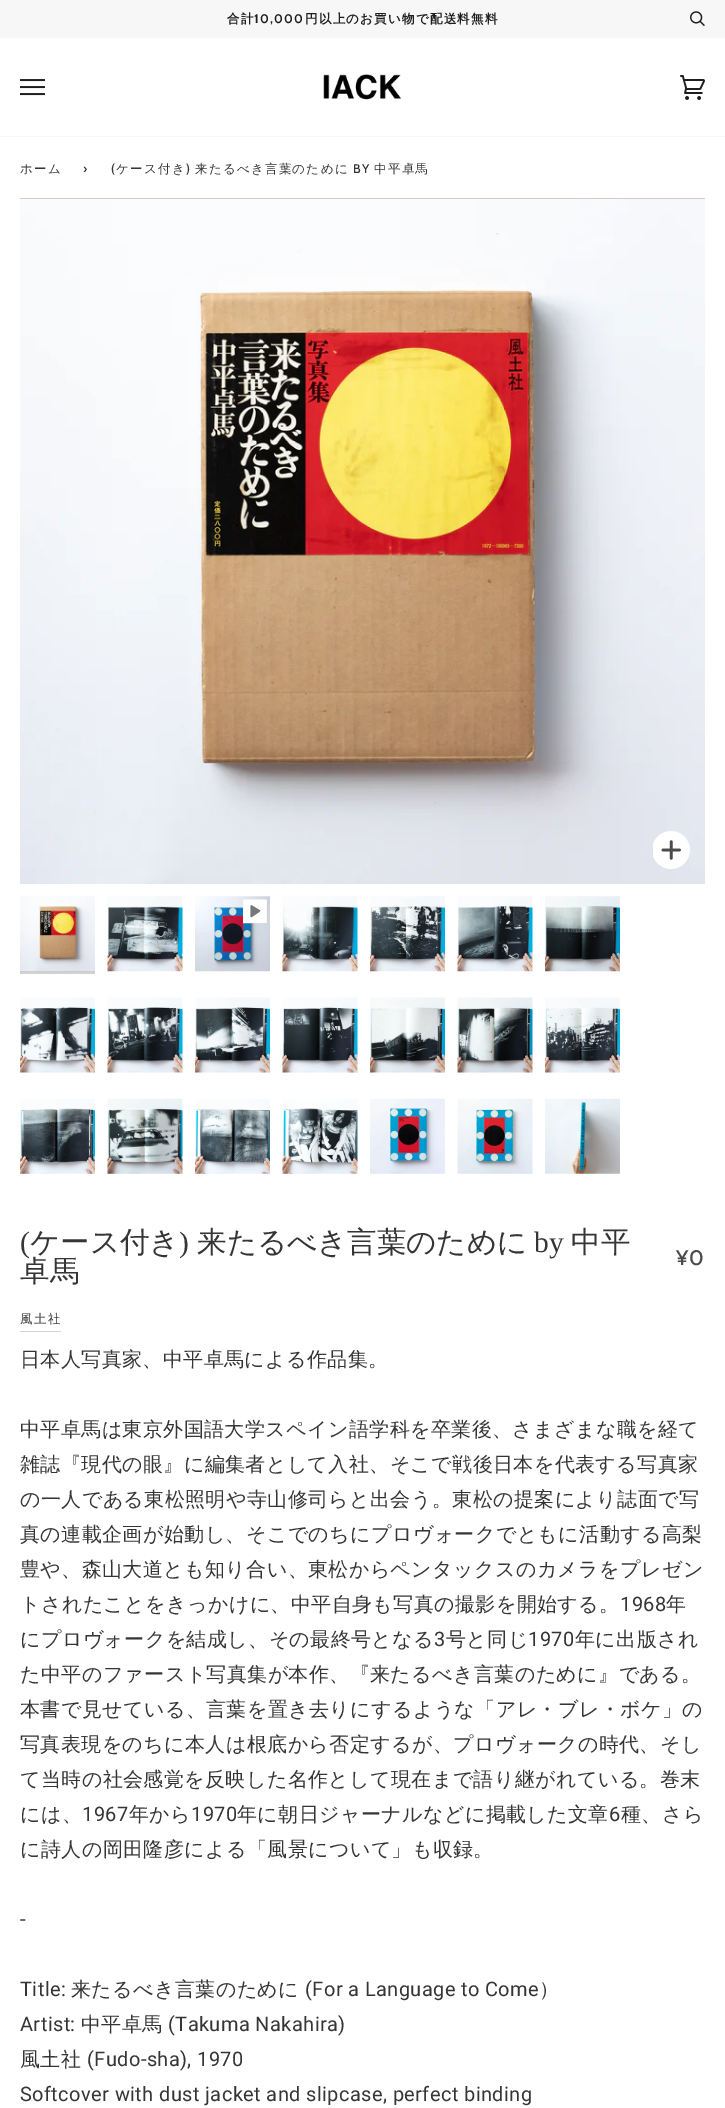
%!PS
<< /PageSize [725 2108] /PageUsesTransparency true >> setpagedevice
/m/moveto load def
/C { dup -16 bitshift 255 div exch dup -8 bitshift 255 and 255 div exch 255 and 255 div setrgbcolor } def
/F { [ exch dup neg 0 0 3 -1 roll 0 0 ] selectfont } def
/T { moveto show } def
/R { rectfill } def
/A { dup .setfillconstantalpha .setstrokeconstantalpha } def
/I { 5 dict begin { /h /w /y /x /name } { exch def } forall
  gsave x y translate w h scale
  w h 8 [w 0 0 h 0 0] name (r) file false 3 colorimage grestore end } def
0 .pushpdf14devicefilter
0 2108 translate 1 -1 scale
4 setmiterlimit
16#FFFFFF C
0 0 725 2108 R
16#F7F7F7 C
0 0 725 38 R
/WenQuanYiZenHei-Bold 12.5 F
16#1E1E1E C
227 23 m 1.25 0 (合計) ashow
/Cabin-Bold 12.5 F
254 23 m 1.25 0 (10,000) ashow
/WenQuanYiZenHei-Bold 12.5 F
305 23 m 1.25 0 (円以上のお買い物で配送料無料) ashow
(1.rgb) 690 11 15 15 I
16#F7F7F7 C
0 136 725 1 R
(2.rgb) 20 79 25 17 I
(3.rgb) 323 74 78 26 I
(4.rgb) 680 75 25 25 I
/WenQuanYiZenHei-Medium 12.5 F
16#353535 C
20 173 m 1.25 0 (ホーム) ashow
/Cabin-Medium 12.5 F
83 173 m 1.25 0 (›) ashow
111 173 m 1.25 0 (\() ashow
/WenQuanYiZenHei-Medium 12.5 F
116 173 m 1.25 0 (ケース付き) ashow
/Cabin-Medium 12.5 F
186 173 m 1.25 0 (\)) ashow
/WenQuanYiZenHei-Medium 12.5 F
195 173 m 1.25 0 (来たるべき言葉のために) ashow
/Cabin-Medium 12.5 F
353 173 m 1.25 0 (BY) ashow
/WenQuanYiZenHei-Medium 12.5 F
374 173 m 1.25 0 (中平卓馬) ashow
16#DACABD C
20 198 685 1 R
(5.rgb) 20 199 685 685 I
(6.rgb) 653 831 37 38 I
(7.rgb) 20 896 75 76 I
0.2 A
16#1E1E1E C
20 971 75 3 R
1 A
(8.rgb) 107 896 76 76 I
(9.rgb) 195 896 75 76 I
(10.rgb) 243 899 25 25 I
(11.rgb) 282 896 76 76 I
(12.rgb) 370 896 75 76 I
(13.rgb) 457 896 76 76 I
(14.rgb) 545 896 75 76 I
(15.rgb) 20 997 75 76 I
(16.rgb) 107 997 76 76 I
(17.rgb) 195 997 75 76 I
(18.rgb) 282 997 76 76 I
(19.rgb) 370 997 75 76 I
(20.rgb) 457 997 76 76 I
(21.rgb) 545 997 75 76 I
(22.rgb) 20 1099 75 75 I
(23.rgb) 107 1098 76 76 I
(24.rgb) 195 1099 75 75 I
(25.rgb) 282 1099 76 75 I
(26.rgb) 370 1098 75 76 I
(27.rgb) 457 1098 76 76 I
(28.rgb) 545 1098 75 76 I
/LiberationSerif-Regular 29.5 F
16#353535 C
(\() 20 1252 T
/WenQuanYiZenHei-Medium 29.5 F
(ケース付き) 30 1252 T
/LiberationSerif-Regular 29.5 F
(\)) 179 1252 T
/WenQuanYiZenHei-Medium 29.5 F
(来たるべき言葉のために) 197 1252 T
/LiberationSerif-Regular 29.5 F
(by) 534 1252 T
/WenQuanYiZenHei-Medium 29.5 F
(中平) 571 1252 T
(卓馬) 20 1281 T
/Cabin-Medium 21 F
16#4B4B4B C
676 1265 m 1.25 0 (¥0) ashow
/WenQuanYiZenHei-Medium 12.5 F
16#353535 C
20 1323 m 1.25 0 (風土社) ashow
16#D2D2D2 C
20 1331 41 1 R
/WenQuanYiZenHei-Medium 20 F
16#353535 C
20 1366 m .4 0 (日本人写真家、中平卓馬による作品集。) ashow
20 1436 m .4 0 (中平卓馬は東京外国語大学スペイン語学科を卒業後、さまざまな職を経て) ashow
20 1471 m .4 0 (雑誌『現代の眼』に編集者として入社、そこで戦後日本を代表する写真家) ashow
20 1506 m .4 0 (の一人である東松照明や寺山修司らと出会う。東松の提案により誌面で写) ashow
20 1541 m .4 0 (真の連載企画が始動し、そこでのちにプロヴォークでともに活動する高梨) ashow
20 1576 m .4 0 (豊や、森山大道とも知り合い、東松からペンタックスのカメラをプレゼン) ashow
20 1611 m .4 0 (トされたことをきっかけに、中平自身も写真の撮影を開始する。) ashow
/Roboto-Regular 20 F
620 1611 m .4 0 (1968) ashow
/WenQuanYiZenHei-Medium 20 F
666 1611 m .4 0 (年) ashow
20 1646 m .4 0 (にプロヴォークを結成し、その最終号となる) ashow
/Roboto-Regular 20 F
434 1646 m .4 0 (3) ashow
/WenQuanYiZenHei-Medium 20 F
446 1646 m .4 0 (号と同じ) ashow
/Roboto-Regular 20 F
528 1646 m .4 0 (1970) ashow
/WenQuanYiZenHei-Medium 20 F
575 1646 m .4 0 (年に出版され) ashow
20 1681 m .4 0 (た中平のファースト写真集が本作、『来たるべき言葉のために』である。) ashow
20 1716 m .4 0 (本書で見せている、言葉を置き去りにするような「アレ・ブレ・ボケ」の) ashow
20 1751 m .4 0 (写真表現をのちに本人は根底から否定するが、プロヴォークの時代、そし) ashow
20 1786 m .4 0 (て当時の社会感覚を反映した名作として現在まで語り継がれている。巻末) ashow
20 1821 m .4 0 (には、) ashow
/Roboto-Regular 20 F
82 1821 m .4 0 (1967) ashow
/WenQuanYiZenHei-Medium 20 F
129 1821 m .4 0 (年から) ashow
/Roboto-Regular 20 F
191 1821 m .4 0 (1970) ashow
/WenQuanYiZenHei-Medium 20 F
237 1821 m .4 0 (年に朝日ジャーナルなどに掲載した文章) ashow
/Roboto-Regular 20 F
609 1821 m .4 0 (6) ashow
/WenQuanYiZenHei-Medium 20 F
621 1821 m .4 0 (種、さら) ashow
20 1856 m .4 0 (に詩人の岡田隆彦による「風景について」も収録。) ashow
/Roboto-Regular 20 F
20 1926 m .4 0 (-) ashow
20 1996 m .4 0 (Title:) ashow
/WenQuanYiZenHei-Medium 20 F
71 1996 m .4 0 (来たるべき言葉のために) ashow
/Roboto-Regular 20 F
305 1996 m .4 0 (\(For a Language to Come) ashow
/WenQuanYiZenHei-Medium 20 F
539 1996 m .4 0 (）) ashow
/Roboto-Regular 20 F
20 2031 m .4 0 (Artist:) ashow
/WenQuanYiZenHei-Medium 20 F
81 2031 m .4 0 (中平卓馬) ashow
/Roboto-Regular 20 F
168 2031 m .4 0 (\(Takuma Nakahira\)) ashow
/WenQuanYiZenHei-Medium 20 F
20 2066 m .4 0 (風土社) ashow
/Roboto-Regular 20 F
87 2066 m .4 0 (\(Fudo-sha\), 1970) ashow
20 2101 m .4 0 (Softcover with dust jacket and slipcase, perfect binding) ashow
.poppdf14devicefilter showpage
